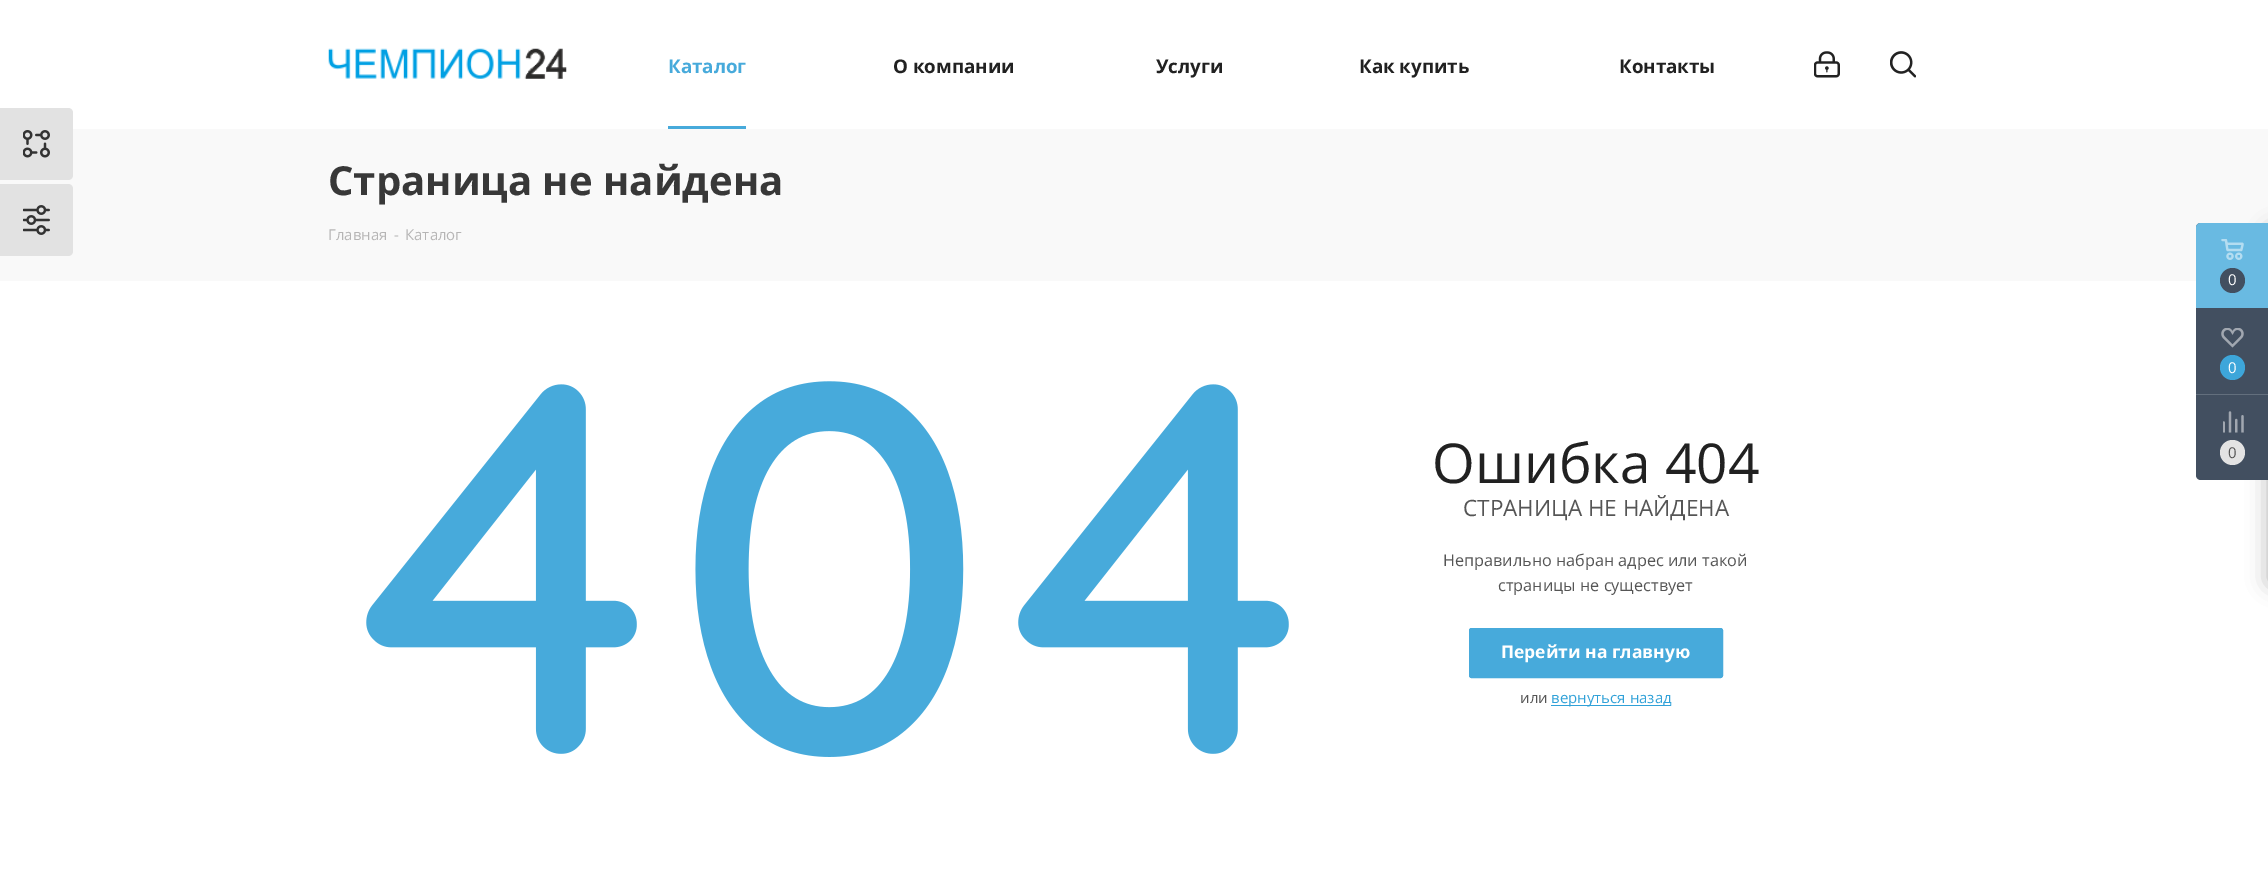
%!PS
<< /PageSize [2268 884] /PageUsesTransparency true >> setpagedevice
/m/moveto load def
/l/rlineto load def
/c/rcurveto load def
/z/closepath load def
/f/fill load def
/s/stroke load def
/q/gsave load def
/Q_/grestore load def
/C { dup -16 bitshift 255 div exch dup -8 bitshift 255 and 255 div exch 255 and 255 div setrgbcolor } def
/F { [ exch dup neg 0 0 3 -1 roll 0 0 ] selectfont } def
/T { moveto show } def
/R { rectfill } def
/A { dup .setfillconstantalpha .setstrokeconstantalpha } def
/O { newpath 0 360 arc closepath } def
/Q { 5 dict begin { /r /h /w /y /x } { exch def } forall
  x r add y moveto x w add y 2 copy h add r arct x w add y h add x 1 index r arct
  x y h add x y r arct x y 2 copy exch w add exch r arct closepath end } def
/S { 12 dict begin { /a /b /q /h /w /y /x } { exch def } forall gsave /was 0 def
  9 -2 -9 { dup b mul 4 div /e exch def 1 sub .425 mul 2.718 exch exp 1 add a .99 .min exch div /now exch def
    1 1 now sub 1 was sub div sub A /was now def
    w h .min e 2 mul add 0 gt { x e sub y e sub w e 2 mul add h e 2 mul add
      q e add b .6 mul add w h .min 2 div e add .min 0 .max Q fill } if } for grestore end } def
/I { 5 dict begin { /h /w /y /x /name } { exch def } forall
  gsave x y translate w h scale
  w h 8 [w 0 0 h 0 0] name (r) file false 3 colorimage grestore end } def
0 .pushpdf14devicefilter
0 884 translate 1 -1 scale
4 setmiterlimit
16#FFFFFF C
0 0 2268 884 R
16#F9F9F9 C
0 129 2268 152 R
16#E2E2E2 C
0 108 m 68 0 l 3 0 5 2 5 5 c 0 62 l 0 3 -2 5 -5 5 c -68 0 l z f
(1.rgb) 23 130 27 28 I
0 184 m 68 0 l 3 0 5 2 5 5 c 0 62 l 0 3 -2 5 -5 5 c -68 0 l z f
(2.rgb) 23 205 27 30 I
(3.rgb) 328 48 239 31 I
/OpenSans-Bold 18.75 F
16#47AADB C
(Каталог) 668 73 T
668 126 78 3 R
16#212121 C
(О компании) 893 73 T
(Услуги) 1156 73 T
(Как купить) 1359 73 T
(Контакты) 1619 73 T
(4.rgb) 1814 51 26 27 I
(5.rgb) 1890 51 26 27 I
/OpenSans-Bold 40 F
16#383838 C
(Страница не найдена) 328 195 T
/OpenSans-Regular 15 F
16#B6B5B5 C
(Главная) 328 240 T
(-) 394 240 T
(Каталог) 405 240 T
(6.rgb) 366 381 923 376 I
/OpenSans-Regular 55 F
16#212121 C
(Ошибка 404) 1432 483 T
/OpenSans-Regular 22.5 F
16#555555 C
(СТРАНИЦА НЕ НАЙДЕНА) 1463 516 T
/OpenSans-Regular 16.25 F
(Неправильно набран адрес или такой) 1443 566 T
(страницы не существует) 1498 591 T
16#47AADB C
1469.5 628.5 253 49 2 Q q f Q_
s
/OpenSans-Bold 17.5 F
16#FFFFFF C
(Перейти на главную) 1501 658 T
/OpenSans-Regular 15 F
16#555555 C
(или) 1520 703 T
16#30A1D8 C
1551 705 120 1 R
(вернуться назад) 1551 703 T
16#2C2C2C C
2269 230 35 354 2.5 11 .4 S
16#424F60 C
2201 223 m 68 0 l 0 257 l -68 0 l -3 0 -5 -2 -5 -5 c 0 -247 l 0 -3 2 -5 5 -5 c z f
16#69BAE2 C
2201 223 m 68 0 l 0 85 l -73 0 l 0 -80 l 0 -3 2 -5 5 -5 c z f
(7.rgb) 2221 239 23 21 I
16#424F60 C
2232.5 280.5 12.5 O f
16#FFFFFF C
(0) 2228 285 T
(8.rgb) 2221 328 23 20 I
16#3DA6DA C
2232.5 367.5 12.5 O f
16#FFFFFF C
(0) 2228 373 T
16#636F7D C
2196 394 72 1 R
(9.rgb) 2223 411 21 22 I
16#E3E3E3 C
2232.5 452.5 12.5 O f
16#555555 C
(0) 2228 458 T
.poppdf14devicefilter showpage
